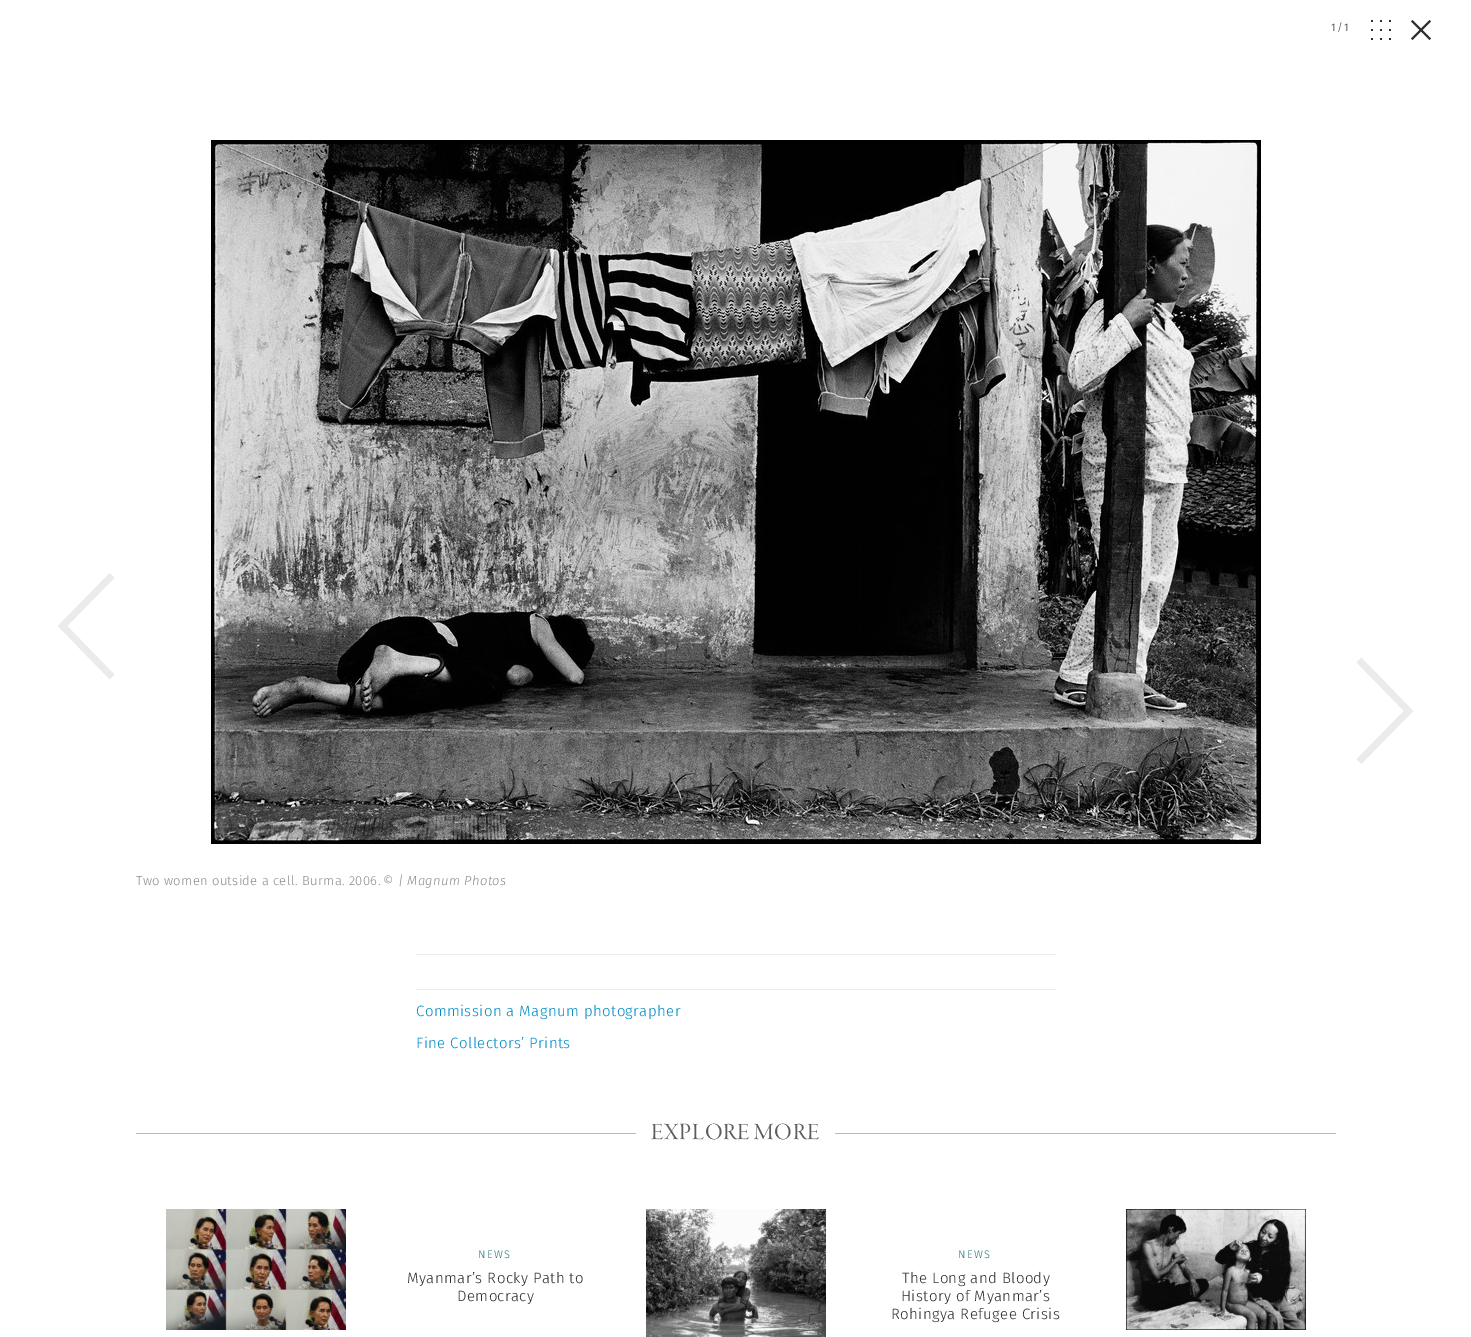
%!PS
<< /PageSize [1471 1337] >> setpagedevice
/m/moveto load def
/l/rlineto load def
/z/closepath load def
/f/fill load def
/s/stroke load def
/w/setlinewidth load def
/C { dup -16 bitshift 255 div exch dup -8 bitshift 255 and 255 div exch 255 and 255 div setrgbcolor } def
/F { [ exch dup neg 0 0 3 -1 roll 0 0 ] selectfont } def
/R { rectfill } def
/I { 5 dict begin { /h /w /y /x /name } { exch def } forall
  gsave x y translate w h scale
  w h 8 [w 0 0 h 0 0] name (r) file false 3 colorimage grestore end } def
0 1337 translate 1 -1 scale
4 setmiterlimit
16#FFFFFF C
0 0 1471 1337 R
/FiraSans-Light 11 F
16#302D2D C
1331 31 m 1.5 0 (1/1) ashow
(1.rgb) 1371 20 20 20 I
1412.5 20 m 18.5 18.5 l -1.5 1.5 l -18.5 -18.5 l z f
1411 38.5 m 18.5 -18.5 l 1.5 1.5 l -18.5 18.5 l z f
16#EBEBEB C
6.7 w
112 575.5 m -49.5 50.5 l 49.5 51 l s
1359 761.5 m 49.5 -50.5 l -49.5 -51 l s
16#000000 C
1259 140 2 704 R
(2.rgb) 211 140 1048 704 I
/FiraSans-Light 13 F
16#898989 C
136 885 m .35 0 (Two women outside a cell. Burma. 2006.) ashow
/FiraSans-LightItalic 13 F
383 885 m .35 0 (© | Magnum Photos) ashow
16#EBEBEB C
416 954 640 1 R
416 989 640 1 R
/FiraSans-Light 15 F
16#008CCA C
416 1016 m .4 0 (Commission a Magnum photographer) ashow
416 1048 m .4 0 (Fine Collectors’ Prints) ashow
16#B9B9B9 C
136 1133 1200 1 R
16#FFFFFF C
636 1133 199 1 R
/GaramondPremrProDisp-Regular 24 F
16#5E5D5D C
651 1139 m .6 0 (EXPLORE MORE) ashow
(3.rgb) 166 1209 180 121 I
/FiraSans-Light 11 F
16#287675 C
478 1258 m 1.5 0 (NEWS) ashow
/FiraSans-Light 15 F
16#302D2D C
407 1283 m .4 0 (Myanmar’s Rocky Path to) ashow
457 1301 m .4 0 (Democracy) ashow
(4.rgb) 646 1209 180 128 I
/FiraSans-Light 11 F
16#287675 C
958 1258 m 1.5 0 (NEWS) ashow
/FiraSans-Light 15 F
16#302D2D C
902 1283 m .4 0 (The Long and Bloody) ashow
901 1301 m .4 0 (History of Myanmar’s) ashow
891 1319 m .4 0 (Rohingya Refugee Crisis) ashow
(5.rgb) 1126 1209 180 121 I
showpage
